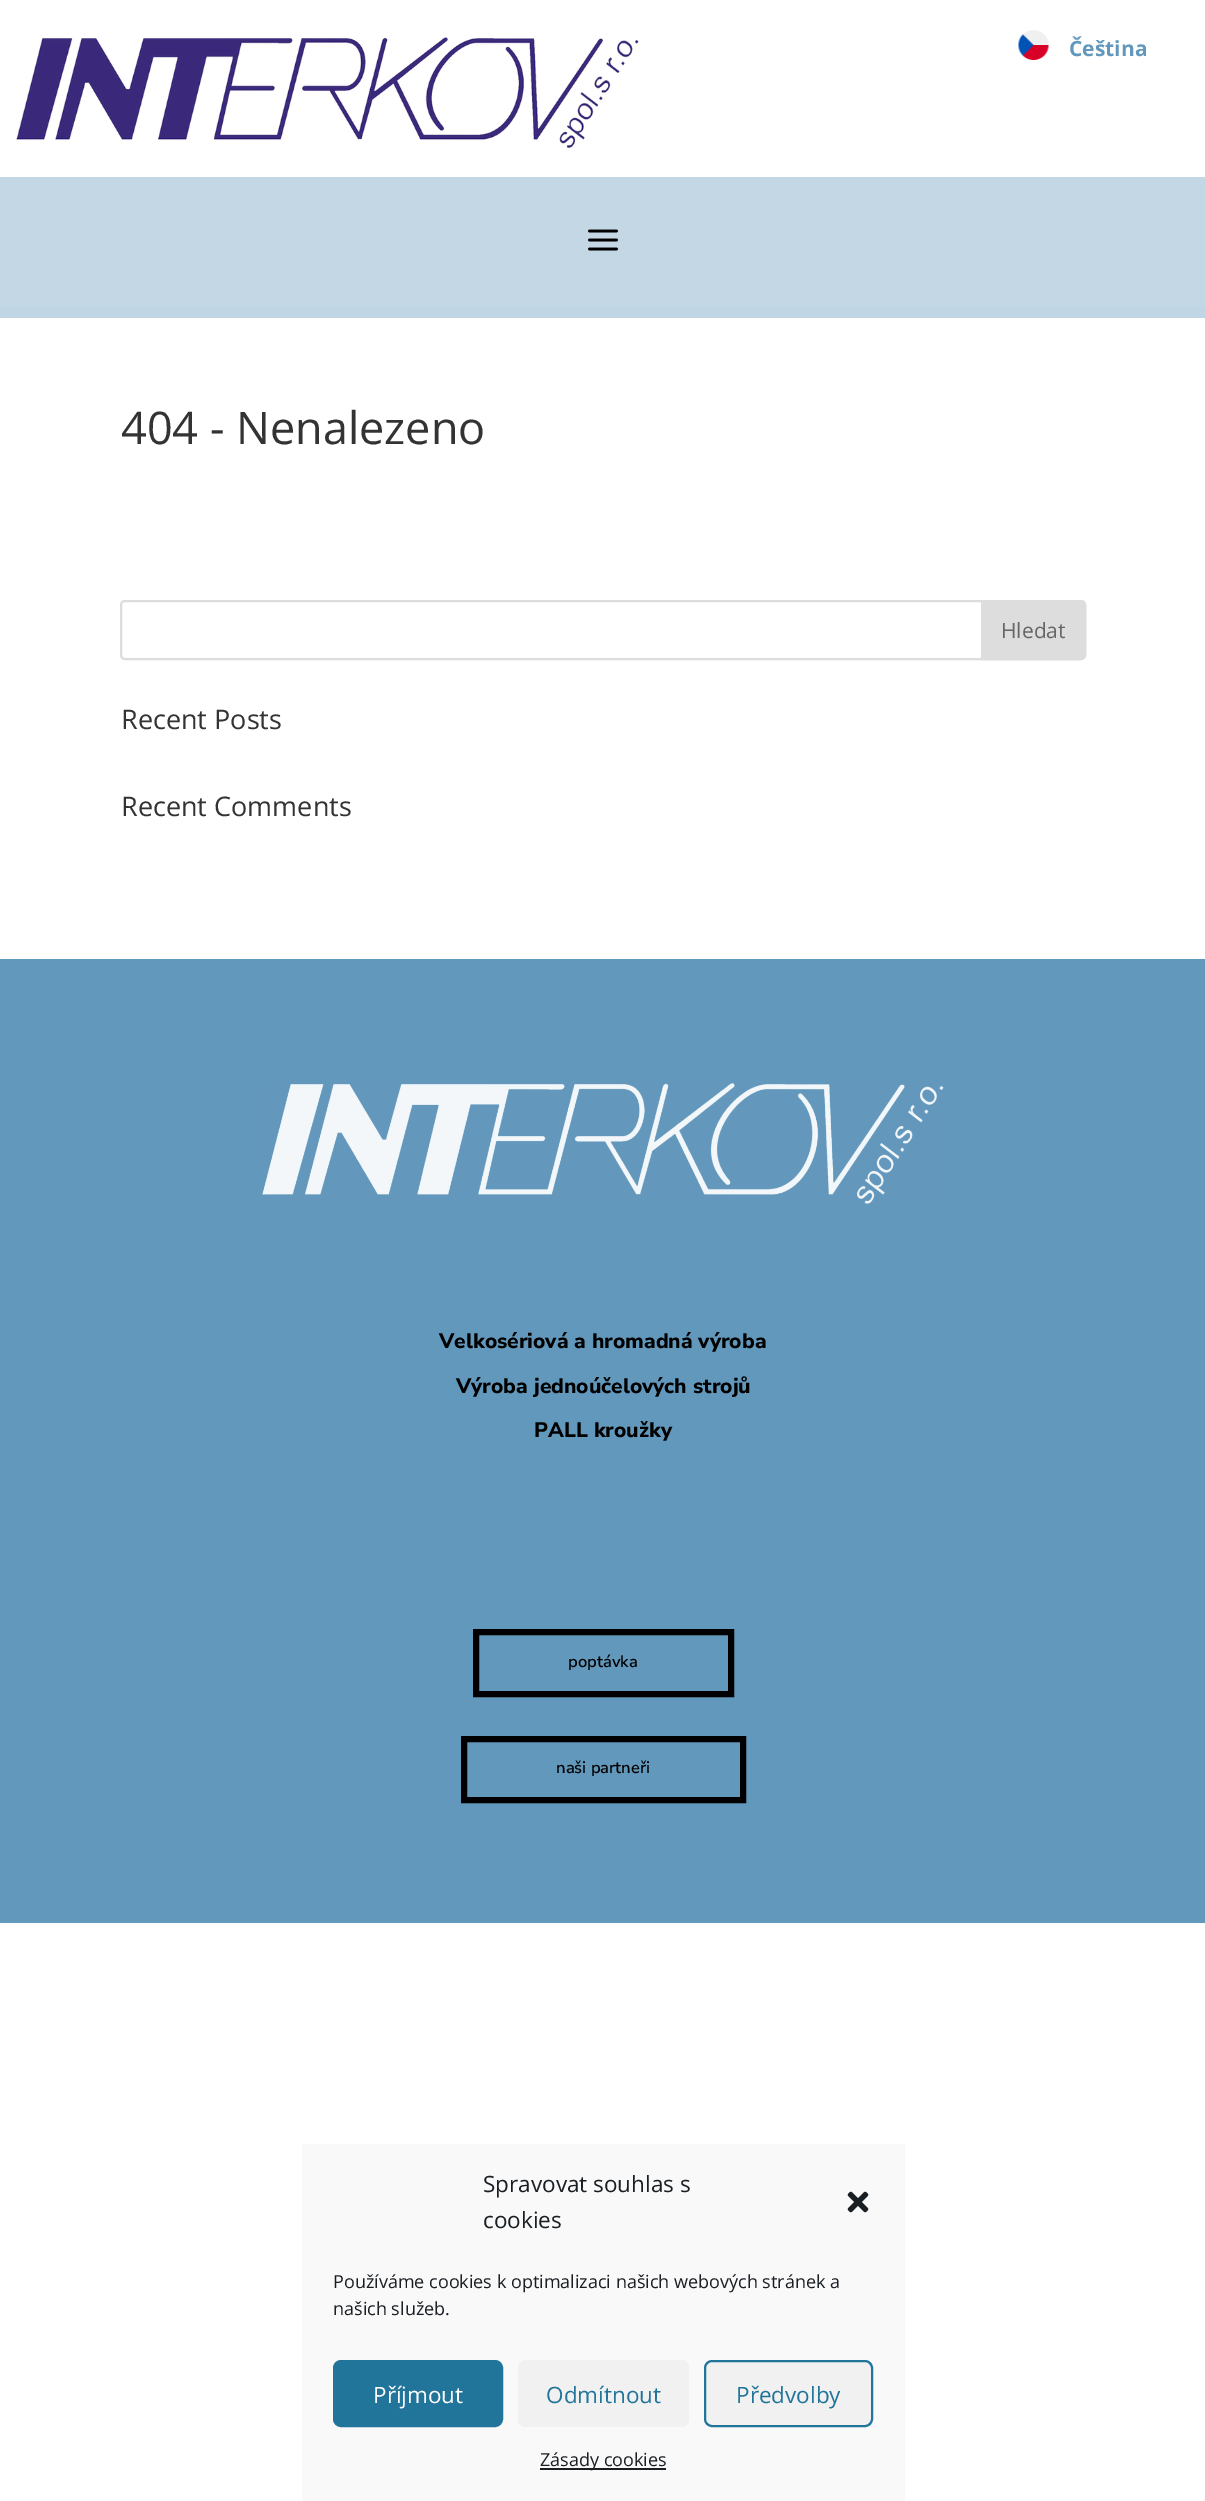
%!PS
<< /PageSize [1205 2501] >> setpagedevice
/m/moveto load def
/l/rlineto load def
/c/rcurveto load def
/z/closepath load def
/f/fill load def
/s/stroke load def
/q/gsave load def
/Q_/grestore load def
/w/setlinewidth load def
/C { dup -16 bitshift 255 div exch dup -8 bitshift 255 and 255 div exch 255 and 255 div setrgbcolor } def
/F { [ exch dup neg 0 0 3 -1 roll 0 0 ] selectfont } def
/T { moveto show } def
/R { rectfill } def
/Q { 5 dict begin { /r /h /w /y /x } { exch def } forall
  x r add y moveto x w add y 2 copy h add r arct x w add y h add x 1 index r arct
  x y h add x y r arct x y 2 copy exch w add exch r arct closepath end } def
/I { 5 dict begin { /h /w /y /x /name } { exch def } forall
  gsave x y translate w h scale
  w h 8 [w 0 0 h 0 0] name (r) file false 3 colorimage grestore end } def
0 2501 translate 1 -1 scale
4 setmiterlimit
16#FFFFFF C
0 0 1205 2501 R
(1.rgb) 16 37 623 111 I
(2.rgb) 1018 30 31 30 I
/OpenSans-Bold 21 F
16#6298BC C
(Čeština) 1069 56 T
16#C1D6E5 C
0 306 1205 12 R
16#C4D7E5 C
0 177 1205 129 R
(3.rgb) 588 229 30 22 I
/OpenSans-Regular 45 F
16#333333 C
(404 - Nenalezeno) 121 444 T
16#DDDDDD C
2 w
121 601 964 58 4 Q s
982 601 m 99 0 l 2 0 4 2 4 4 c 0 50 l 0 2 -2 4 -4 4 c -99 0 l z q f Q_
s
/OpenSans-Regular 21 F
16#666666 C
(Hledat) 1001 638 T
/OpenSans-Regular 27 F
16#333333 C
(Recent Posts) 121 729 T
(Recent Comments) 121 816 T
16#6298BC C
0 959 1205 964 R
(4.rgb) 262 1083 682 121 I
/NunitoSans-ExtraBold 21 F
16#000000 C
(Velkosériová a hromadná výroba) 439 1348 T
(Výroba jednoúčelových strojů) 456 1393 T
(PALL kroužky) 534 1437 T
6 w
476 1632 255 62 rectstroke
/NunitoSans-SemiBold 16.5 F
(poptávka) 568 1667 T
464 1739 279 61 rectstroke
(naši partneři) 556 1773 T
16#F9F9F9 C
302 2144 603 357 R
/OpenSans-Regular 22.5 F
16#191E23 C
(Spravovat souhlas s) 483 2192 T
(cookies) 483 2228 T
(5.rgb) 847 2191 22 22 I
/OpenSans-Regular 18 F
(Používáme cookies k optimalizaci našich webových stránek a) 333 2288 T
(našich služeb.) 333 2315 T
16#21759B C
334 2361 168 65 7 Q q f Q_
2 w
s
/OpenSans-Regular 22.5 F
16#FFFFFF C
(Příjmout) 373 2403 T
16#F1F1F1 C
518 2360 171 67 8 Q f
16#21759B C
(Odmítnout) 546 2403 T
16#F1F1F1 C
705 2361 167 65 7 Q q f Q_
16#21759B C
s
(Předvolby) 736 2403 T
16#191E23 C
540 2468 126 2 R
/OpenSans-Regular 18 F
(Zásady cookies) 540 2466 T
showpage
